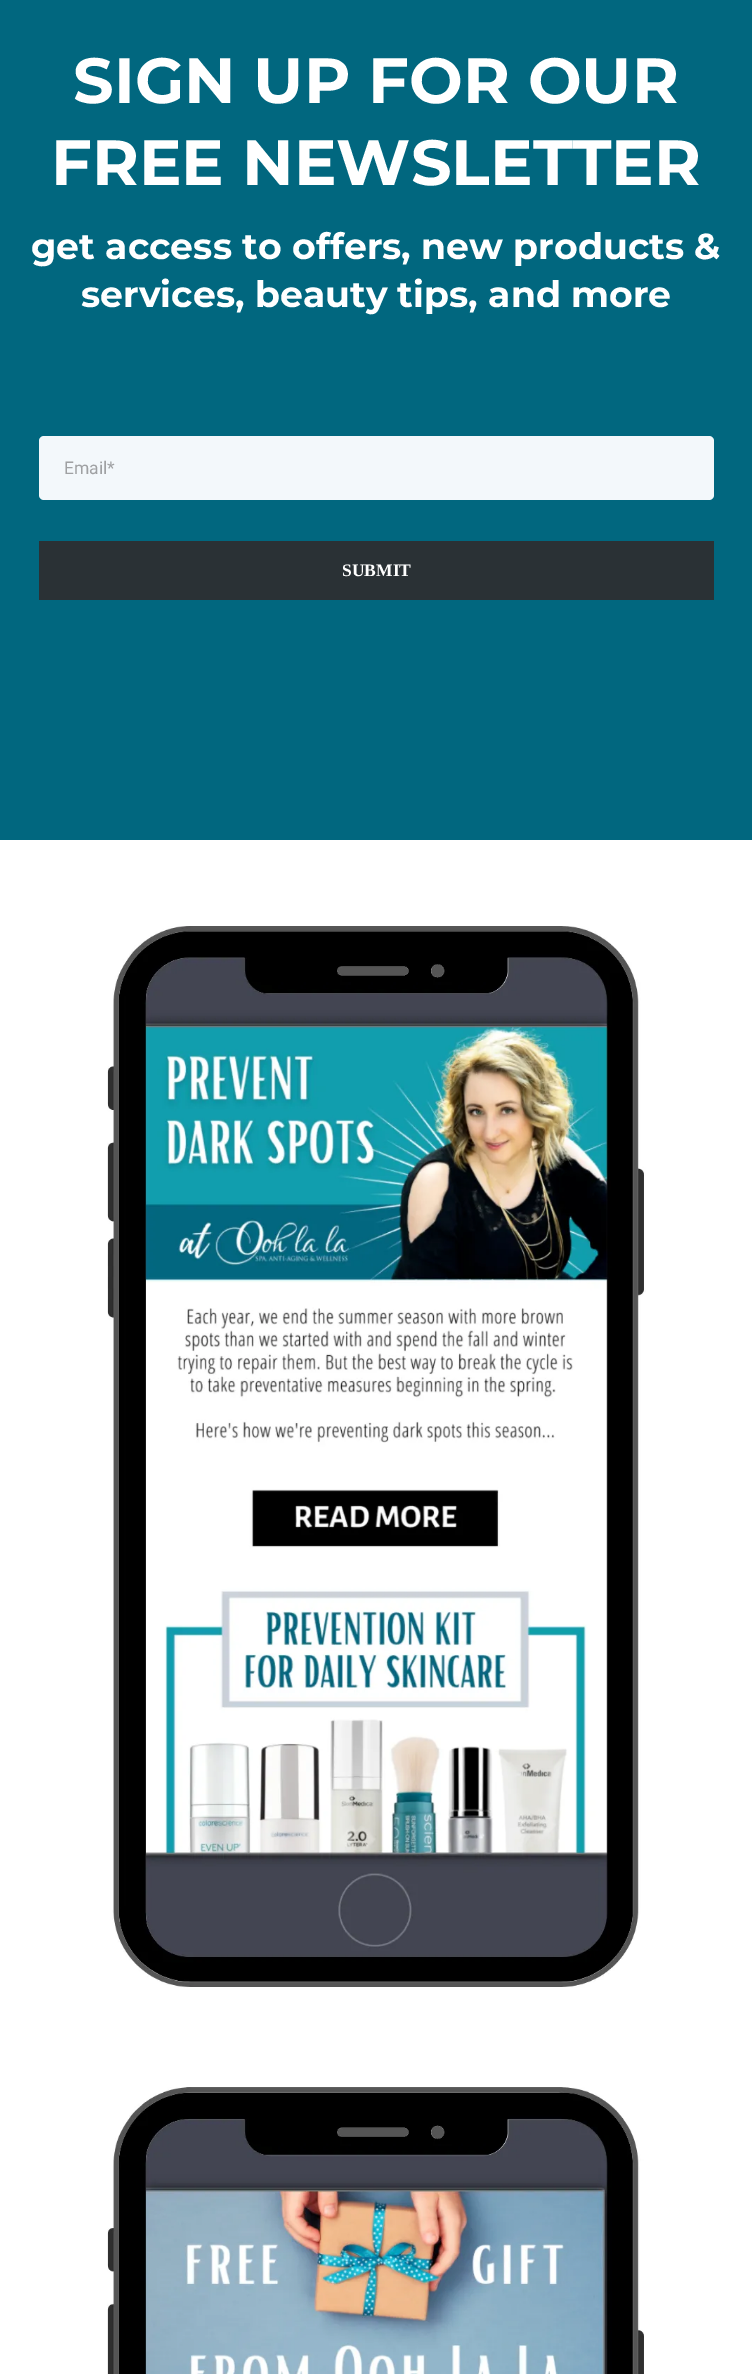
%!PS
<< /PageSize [752 2374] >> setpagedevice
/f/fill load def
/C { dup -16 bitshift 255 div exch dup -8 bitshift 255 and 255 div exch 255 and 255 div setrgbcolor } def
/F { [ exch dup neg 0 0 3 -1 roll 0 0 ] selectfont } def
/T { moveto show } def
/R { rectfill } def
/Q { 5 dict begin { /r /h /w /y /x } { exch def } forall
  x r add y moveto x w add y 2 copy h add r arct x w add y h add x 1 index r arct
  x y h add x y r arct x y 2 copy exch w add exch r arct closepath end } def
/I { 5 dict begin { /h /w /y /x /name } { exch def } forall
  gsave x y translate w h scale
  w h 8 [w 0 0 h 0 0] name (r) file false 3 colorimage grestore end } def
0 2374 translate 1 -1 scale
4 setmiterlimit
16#FFFFFF C
0 0 752 2374 R
16#01677F C
0 0 752 840 R
/Montserrat-Bold 63.75 F
16#FFFFFF C
(SIGN UP FOR OUR) 73 103 T
(FREE NEWSLETTER) 51 185 T
/Montserrat-Bold 36.25 F
(get access to offers, new products &) 31 259 T
(services, beauty tips, and more) 81 307 T
16#F3F8FB C
39 436 675 64 5 Q f
/Roboto-Regular 17.5 F
16#9FA1A3 C
(Email*) 64 474 T
16#2A3135 C
39 541 675 59 .5 Q f
/LiberationSerif-Bold 17.5 F
16#FFFFFF C
(SUBMIT) 342 576 T
(1.rgb) 107 926 539 1062 I
(2.rgb) 107 2087 537 287 I
showpage
